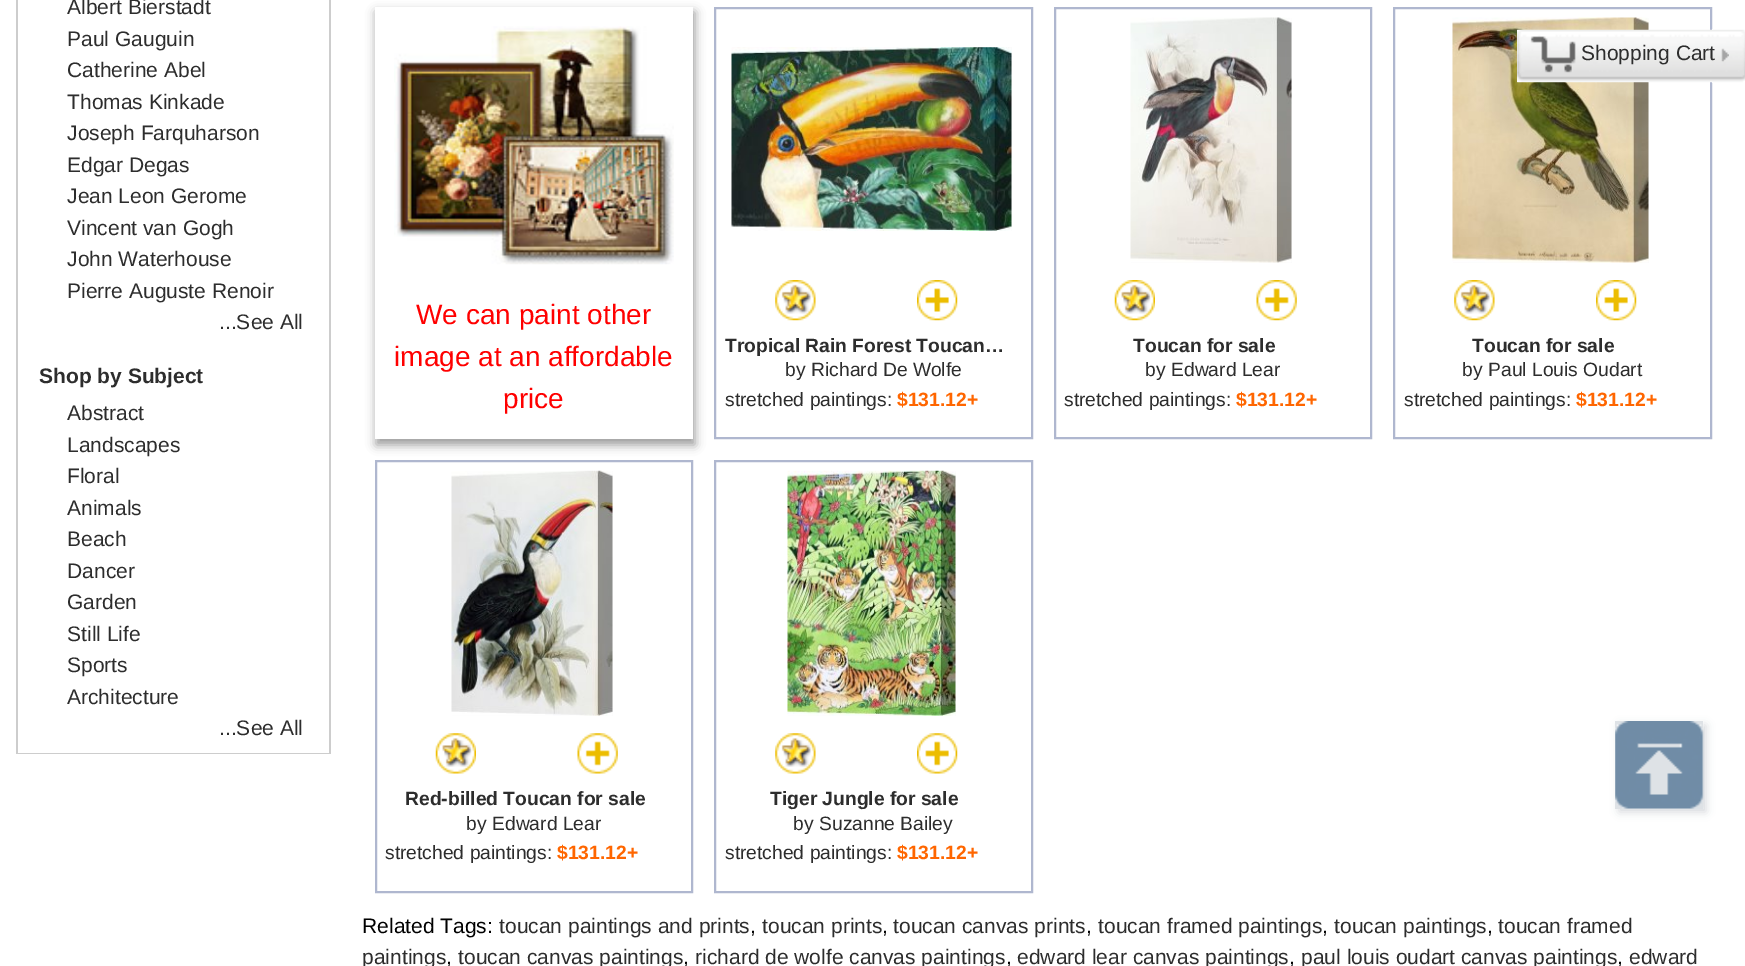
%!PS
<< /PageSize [1745 966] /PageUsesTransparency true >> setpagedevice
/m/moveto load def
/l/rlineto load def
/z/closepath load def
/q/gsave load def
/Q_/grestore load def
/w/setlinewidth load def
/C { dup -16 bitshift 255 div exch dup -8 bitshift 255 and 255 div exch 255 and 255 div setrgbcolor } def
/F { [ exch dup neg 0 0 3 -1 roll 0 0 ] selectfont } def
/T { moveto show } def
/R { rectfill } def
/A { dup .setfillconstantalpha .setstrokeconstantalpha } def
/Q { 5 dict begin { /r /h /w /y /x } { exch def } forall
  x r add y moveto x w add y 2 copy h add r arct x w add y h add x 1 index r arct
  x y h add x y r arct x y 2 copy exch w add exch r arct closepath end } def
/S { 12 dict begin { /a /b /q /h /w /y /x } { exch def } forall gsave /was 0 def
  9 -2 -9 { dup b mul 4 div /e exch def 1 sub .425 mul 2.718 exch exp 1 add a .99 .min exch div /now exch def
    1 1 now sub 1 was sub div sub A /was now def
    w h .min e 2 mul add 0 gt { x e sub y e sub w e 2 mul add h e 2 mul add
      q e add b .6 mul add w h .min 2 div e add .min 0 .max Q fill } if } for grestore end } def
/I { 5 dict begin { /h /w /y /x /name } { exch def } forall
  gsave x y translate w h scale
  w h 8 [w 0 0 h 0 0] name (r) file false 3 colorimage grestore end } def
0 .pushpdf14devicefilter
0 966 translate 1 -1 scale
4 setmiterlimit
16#FFFFFF C
0 0 1745 966 R
16#CDCDCD C
329 0 2 754 R
16 753 315 1 R
16 0 2 754 R
/LiberationSans-Regular 21 F
16#2D2D2D C
(Albert Bierstadt) 67 14 T
(Paul Gauguin) 67 46 T
(Catherine Abel) 67 77 T
(Thomas Kinkade) 67 109 T
(Joseph Farquharson) 67 140 T
(Edgar Degas) 67 172 T
(Jean Leon Gerome) 67 203 T
(Vincent van Gogh) 67 235 T
(John Waterhouse) 67 266 T
(Pierre Auguste Renoir) 67 298 T
(...See All) 219 329 T
/LiberationSans-Bold 21 F
(Shop by Subject) 39 383 T
/LiberationSans-Regular 21 F
(Abstract) 67 420 T
(Landscapes) 67 452 T
(Floral) 67 483 T
(Animals) 67 515 T
(Beach) 67 546 T
(Dancer) 67 578 T
(Garden) 67 609 T
(Still Life) 67 641 T
(Sports) 67 672 T
(Architecture) 67 704 T
(...See All) 219 735 T
q
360 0 m 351 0 l 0 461 l -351 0 l z 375 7 m 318 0 l 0 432 l -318 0 l z eoclip newpath
16#999999 C
376 12 319 433 0 5 1 S
Q_
(1.rgb) 394 26 280 239 I
/LiberationSans-Regular 28 F
16#FF0000 C
(We can paint other) 416 324 T
(image at an affordable) 394 366 T
(price) 503 408 T
16#AFB7CF C
2 w
715 8 317 430 rectstroke
16#FAFAFA C
732 47 280 184 R
(2.rgb) 731 47 281 184 I
(3.rgb) 775 280 41 41 I
(4.rgb) 917 280 41 41 I
q
725 333 280 24 rectclip
/LiberationSans-Bold 19.25 F
16#2D2D2D C
(Tropical Rain Forest Toucan…) 725 352 T
Q_
/LiberationSans-Regular 19.25 F
16#2D2D2D C
(by) 785 376 T
(Richard De Wolfe) 811 376 T
(stretched paintings:) 725 406 T
/LiberationSans-Bold 19.25 F
16#FF6600 C
($131.12+) 897 406 T
16#AFB7CF C
1055 8 316 430 rectstroke
16#FAFAFA C
1131 18 161 245 R
(5.rgb) 1130 17 162 246 I
(6.rgb) 1114 280 41 41 I
(7.rgb) 1256 280 41 41 I
16#2D2D2D C
(Toucan for sale) 1133 352 T
/LiberationSans-Regular 19.25 F
(by) 1145 376 T
(Edward Lear) 1171 376 T
(stretched paintings:) 1064 406 T
/LiberationSans-Bold 19.25 F
16#FF6600 C
($131.12+) 1236 406 T
16#AFB7CF C
1394 8 317 430 rectstroke
16#FAFAFA C
1453 18 196 245 R
(8.rgb) 1452 17 197 246 I
(3.rgb) 1454 280 41 41 I
(4.rgb) 1596 280 41 41 I
16#2D2D2D C
(Toucan for sale) 1472 352 T
/LiberationSans-Regular 19.25 F
(by) 1462 376 T
(Paul Louis Oudart) 1488 376 T
(stretched paintings:) 1404 406 T
/LiberationSans-Bold 19.25 F
16#FF6600 C
($131.12+) 1576 406 T
16#AFB7CF C
376 461 316 431 rectstroke
16#FAFAFA C
452 471 161 245 R
(9.rgb) 451 470 162 246 I
(10.rgb) 435 733 41 41 I
(11.rgb) 577 733 41 41 I
16#2D2D2D C
(Red-billed Toucan for sale) 405 805 T
/LiberationSans-Regular 19.25 F
(by) 466 830 T
(Edward Lear) 492 830 T
(stretched paintings:) 385 859 T
/LiberationSans-Bold 19.25 F
16#FF6600 C
($131.12+) 557 859 T
16#AFB7CF C
715 461 317 431 rectstroke
16#FAFAFA C
788 471 168 245 R
(12.rgb) 787 470 169 246 I
(13.rgb) 775 733 41 41 I
(14.rgb) 917 733 41 41 I
16#2D2D2D C
(Tiger Jungle for sale) 770 805 T
/LiberationSans-Regular 19.25 F
(by) 793 830 T
(Suzanne Bailey) 819 830 T
(stretched paintings:) 725 859 T
/LiberationSans-Bold 19.25 F
16#FF6600 C
($131.12+) 897 859 T
/LiberationSans-Regular 21 F
16#000000 C
(Related Tags:) 362 933 T
16#2D2D2D C
(toucan paintings and prints) 499 933 T
16#000000 C
(,) 750 933 T
16#2D2D2D C
(toucan prints) 762 933 T
16#000000 C
(,) 882 933 T
16#2D2D2D C
(toucan canvas prints) 893 933 T
16#000000 C
(,) 1086 933 T
16#2D2D2D C
(toucan framed paintings) 1098 933 T
16#000000 C
(,) 1322 933 T
16#2D2D2D C
(toucan paintings) 1334 933 T
16#000000 C
(,) 1487 933 T
16#2D2D2D C
(toucan framed) 1498 933 T
(paintings) 362 964 T
16#000000 C
(,) 446 964 T
16#2D2D2D C
(toucan canvas paintings) 458 964 T
16#000000 C
(,) 683 964 T
16#2D2D2D C
(richard de wolfe canvas paintings) 695 964 T
16#000000 C
(,) 1006 964 T
16#2D2D2D C
(edward lear canvas paintings) 1017 964 T
16#000000 C
(,) 1289 964 T
16#2D2D2D C
(paul louis oudart canvas paintings) 1301 964 T
16#000000 C
(,) 1617 964 T
16#2D2D2D C
(edward) 1629 964 T
(15.rgb) 1517 29 228 54 I
(Shopping Cart) 1581 60 T
(16.rgb) 1721 48 8 14 I
16#D5D8DB C
1619 725 87 87 0 4.5 1 S
16#DEE2E6 C
1615 721 88 88 R
(17.rgb) 1615 721 89 88 I
.poppdf14devicefilter showpage
